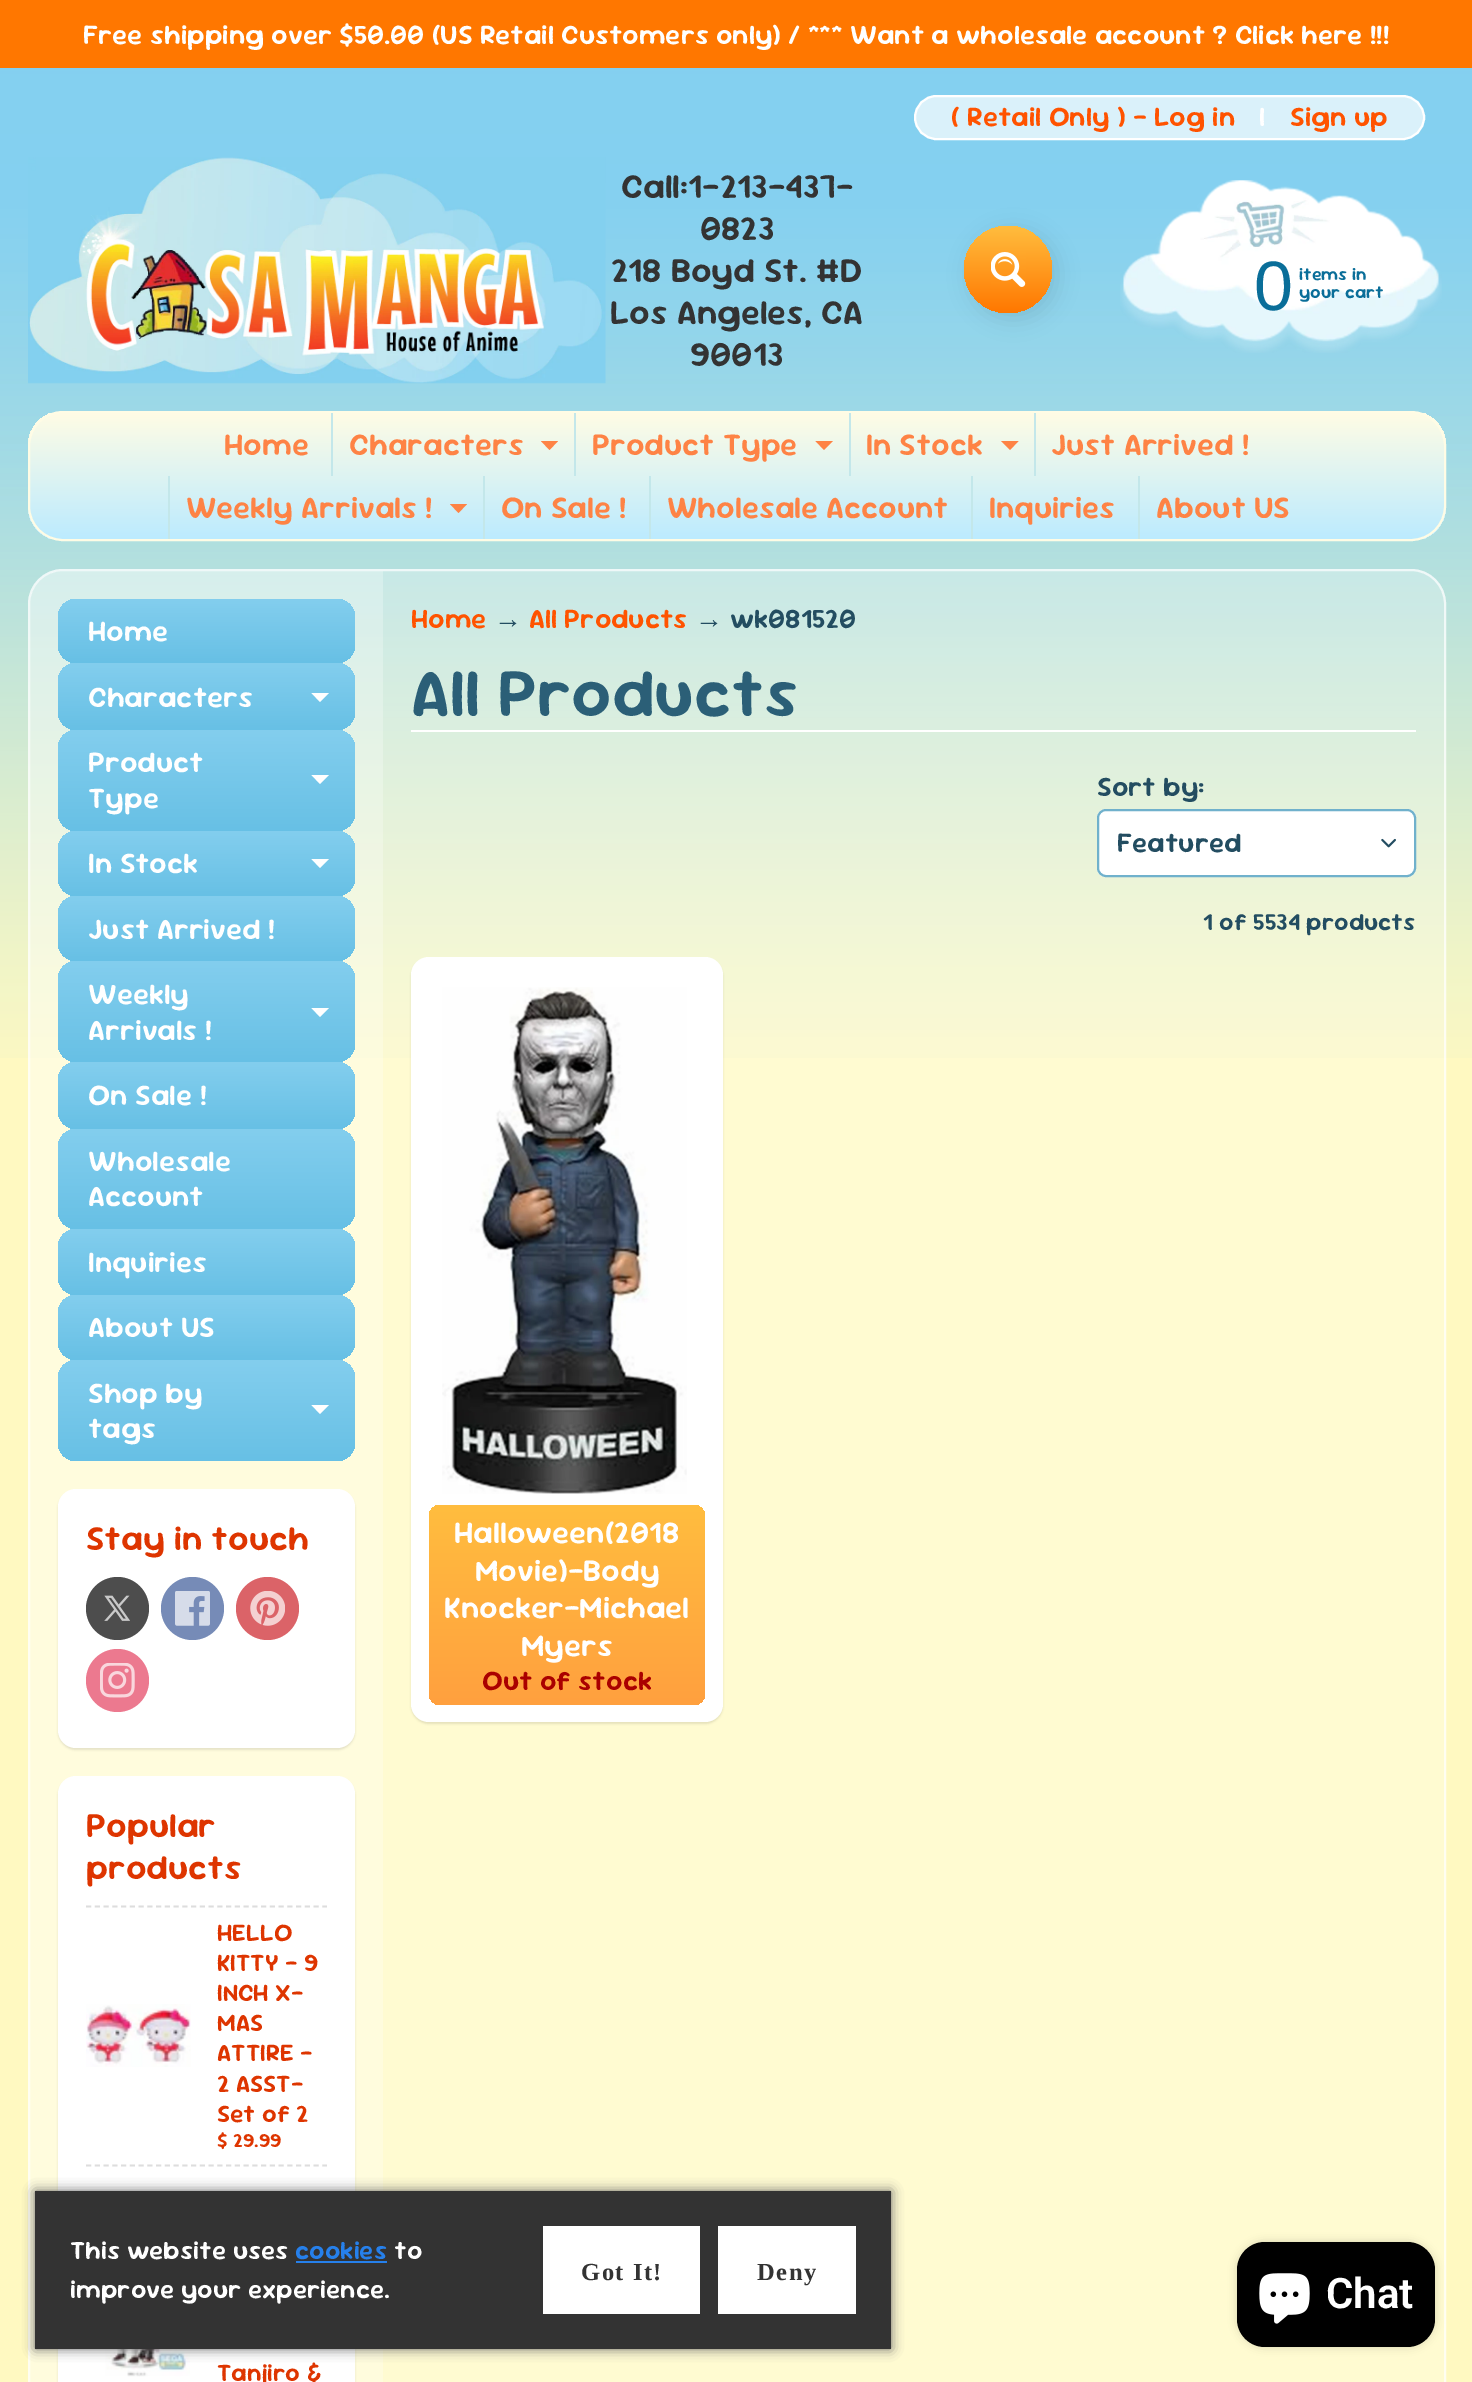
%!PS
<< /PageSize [1472 2382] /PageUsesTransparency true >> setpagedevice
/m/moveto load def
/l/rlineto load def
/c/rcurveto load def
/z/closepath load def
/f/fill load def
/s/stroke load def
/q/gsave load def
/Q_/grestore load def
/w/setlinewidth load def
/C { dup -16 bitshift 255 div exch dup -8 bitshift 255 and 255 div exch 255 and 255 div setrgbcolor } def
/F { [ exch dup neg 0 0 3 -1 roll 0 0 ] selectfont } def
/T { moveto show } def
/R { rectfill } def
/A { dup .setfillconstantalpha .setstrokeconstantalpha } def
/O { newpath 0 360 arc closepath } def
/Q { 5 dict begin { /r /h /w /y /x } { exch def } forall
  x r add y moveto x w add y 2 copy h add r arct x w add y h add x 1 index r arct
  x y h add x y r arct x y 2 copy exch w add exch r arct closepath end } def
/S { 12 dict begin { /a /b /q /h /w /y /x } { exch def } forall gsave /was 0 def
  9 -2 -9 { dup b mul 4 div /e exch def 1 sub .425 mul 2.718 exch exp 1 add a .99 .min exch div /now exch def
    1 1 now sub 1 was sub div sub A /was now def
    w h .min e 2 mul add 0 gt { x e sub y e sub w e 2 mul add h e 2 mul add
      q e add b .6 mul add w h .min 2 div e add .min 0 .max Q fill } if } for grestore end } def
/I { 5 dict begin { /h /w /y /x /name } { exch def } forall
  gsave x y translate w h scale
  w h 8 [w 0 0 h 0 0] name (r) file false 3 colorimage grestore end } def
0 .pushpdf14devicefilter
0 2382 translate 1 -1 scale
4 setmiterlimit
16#FFF9C1 C
0 0 1472 2382 R
(1.rgb) 0 68 1472 990 I
16#FF7700 C
0 0 1472 68 R
/SourGummy-SemiBold 28 F
16#FFFFFF C
(Free shipping over $50.00 \(US Retail Customers only\) / *** Want a wholesale account ? Click here !!!) 83 44 T
(2.rgb) 28 157 578 227 I
/SourGummy-SemiBold 35 F
16#333333 C
(Call:1-213-437-) 621 198 T
(0823) 700 240 T
(218 Boyd St. #D) 611 282 T
(Los Angeles, CA) 610 324 T
(90013) 690 366 T
16#DAF1FA C
915 96 509 43 21.5 Q q f Q_
16#FFFFFF C
2 w
s
/SourGummy-SemiBold 28 F
16#FF5300 C
(\( Retail Only \) - Log in) 951 126 T
16#FFFFFF C
(|) 1259 126 T
16#FF5300 C
(Sign up) 1290 126 T
16#000000 C
970 231 87 88 43.5 10.5 .1 S
q 964 226 88 87 43.5 Q clip newpath
<< /ShadingType 2 /ColorSpace /DeviceRGB /Coords [1008 226 1008 313] /Extend [true true] /Function << /FunctionType 2 /Domain [0 1] /C0 [1 .741 .243] /C1 [1 .467 0] /N 1 >> >> shfill Q_
(3.rgb) 991 252 35 35 I
(4.rgb) 1120 180 322 173 I
/LiberationSans-Regular 70 F
16#0A6E99 C
(0) 1254 310 T
/SourGummy-SemiBold 18 F
(items in) 1299 280 T
(your cart) 1299 298 T
q
28 411 1418 130 35 Q clip newpath
q 28 413 m 1418 0 l 0 126 l -1418 0 l z clip newpath
<< /ShadingType 2 /ColorSpace /DeviceRGB /Coords [737 413 737 539] /Extend [true true] /Function << /FunctionType 2 /Domain [0 1] /C0 [1 .988 .898] /C1 [.737 .922 1] /N 1 >> >> shfill Q_
Q_
16#FFFCE5 C
29 412 1416 128 34 Q s
/SourGummy-SemiBold 31.5 F
16#FE8345 C
(Home) 224 455 T
16#C3E7EA C
331 413 2 63 R
16#FE8345 C
(Characters) 349 455 T
541 441 m 17 0 l -8.5 9 l z f
16#C3E7EA C
574 413 2 63 R
16#FE8345 C
(Product Type) 592 455 T
815.5 441 m 17.5 0 l -9 9 l z f
16#C3E7EA C
849 413 2 63 R
16#FE8345 C
(In Stock) 866 455 T
1001 441 m 17.5 0 l -8.5 9 l z f
16#C3E7EA C
1034 413 2 63 R
16#FE8345 C
(Just Arrived !) 1051 455 T
16#C3E7EA C
168 476 2 63 R
16#FE8345 C
(Weekly Arrivals !) 186 518 T
450 504 m 17 0 l -8.5 9 l z f
16#C3E7EA C
483 476 2 63 R
16#FE8345 C
(On Sale !) 501 518 T
16#C3E7EA C
649 476 2 63 R
16#FE8345 C
(Wholesale Account) 667 518 T
16#C3E7EA C
971 476 2 63 R
16#FE8345 C
(Inquiries) 989 518 T
16#C3E7EA C
1138 476 2 63 R
16#FE8345 C
(About US) 1156 518 T
0.25 A
16#FFFFFF C
28 569 1418 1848 35 Q f
0.7 A
29 570 1416 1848 34 Q s
0.25 A
63 571 m 320 0 l 0 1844 l -320 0 l -18 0 -33 -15 -33 -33 c 0 -1778 l 0 -18 15 -33 33 -33 c z f
1 A
q 58 599 297 64 18 Q clip newpath
<< /ShadingType 2 /ColorSpace /DeviceRGB /Coords [207 599 207 663] /Extend [true true] /Function << /FunctionType 2 /Domain [0 1] /C0 [.514 .808 .933] /C1 [.404 .753 .898] /N 1 >> >> shfill Q_
/SourGummy-SemiBold 29.75 F
(Home) 88 641 T
q 58 663 297 67 18 Q clip newpath
<< /ShadingType 2 /ColorSpace /DeviceRGB /Coords [207 663 207 730] /Extend [true true] /Function << /FunctionType 2 /Domain [0 1] /C0 [.514 .808 .933] /C1 [.404 .753 .898] /N 1 >> >> shfill Q_
(Characters) 88 707 T
311.5 693 m 17.5 0 l -9 9 l z f
q 58 730 297 101 18 Q clip newpath
<< /ShadingType 2 /ColorSpace /DeviceRGB /Coords [207 730 207 831] /Extend [true true] /Function << /FunctionType 2 /Domain [0 1] /C0 [.514 .808 .933] /C1 [.404 .753 .898] /N 1 >> >> shfill Q_
(Product) 88 772 T
311.5 775 m 17.5 0 l -9 9 l z f
(Type) 88 808 T
q 58 831 297 65 18 Q clip newpath
<< /ShadingType 2 /ColorSpace /DeviceRGB /Coords [207 831 207 896] /Extend [true true] /Function << /FunctionType 2 /Domain [0 1] /C0 [.514 .808 .933] /C1 [.404 .753 .898] /N 1 >> >> shfill Q_
(In Stock) 88 873 T
311.5 859 m 17.5 0 l -9 9 l z f
q 58 896 297 65 18 Q clip newpath
<< /ShadingType 2 /ColorSpace /DeviceRGB /Coords [207 896 207 961] /Extend [true true] /Function << /FunctionType 2 /Domain [0 1] /C0 [.514 .808 .933] /C1 [.404 .753 .898] /N 1 >> >> shfill Q_
(Just Arrived !) 88 939 T
q 58 961 297 101 18 Q clip newpath
<< /ShadingType 2 /ColorSpace /DeviceRGB /Coords [207 961 207 1062] /Extend [true true] /Function << /FunctionType 2 /Domain [0 1] /C0 [.514 .808 .933] /C1 [.404 .753 .898] /N 1 >> >> shfill Q_
(Weekly) 88 1004 T
311.5 1008 m 17.5 0 l -9 9 l z f
(Arrivals !) 88 1040 T
q 58 1062 297 67 18 Q clip newpath
<< /ShadingType 2 /ColorSpace /DeviceRGB /Coords [207 1062 207 1129] /Extend [true true] /Function << /FunctionType 2 /Domain [0 1] /C0 [.514 .808 .933] /C1 [.404 .753 .898] /N 1 >> >> shfill Q_
(On Sale !) 88 1105 T
q 58 1129 297 100 18 Q clip newpath
<< /ShadingType 2 /ColorSpace /DeviceRGB /Coords [207 1129 207 1229] /Extend [true true] /Function << /FunctionType 2 /Domain [0 1] /C0 [.514 .808 .933] /C1 [.404 .753 .898] /N 1 >> >> shfill Q_
(Wholesale) 88 1171 T
(Account) 88 1206 T
q 58 1229 297 66 18 Q clip newpath
<< /ShadingType 2 /ColorSpace /DeviceRGB /Coords [207 1229 207 1295] /Extend [true true] /Function << /FunctionType 2 /Domain [0 1] /C0 [.514 .808 .933] /C1 [.404 .753 .898] /N 1 >> >> shfill Q_
(Inquiries) 88 1272 T
q 58 1295 297 65 18 Q clip newpath
<< /ShadingType 2 /ColorSpace /DeviceRGB /Coords [207 1295 207 1360] /Extend [true true] /Function << /FunctionType 2 /Domain [0 1] /C0 [.514 .808 .933] /C1 [.404 .753 .898] /N 1 >> >> shfill Q_
(About US) 88 1337 T
q 58 1360 297 101 18 Q clip newpath
<< /ShadingType 2 /ColorSpace /DeviceRGB /Coords [207 1360 207 1461] /Extend [true true] /Function << /FunctionType 2 /Domain [0 1] /C0 [.514 .808 .933] /C1 [.404 .753 .898] /N 1 >> >> shfill Q_
(Shop by) 88 1403 T
311.5 1405 m 17.5 0 l -9 9 l z f
(tags) 88 1438 T
16#000000 C
58 1491 297 259 18 1 .1 S
16#FFFFFF C
58 1489 297 259 18 Q f
/SourGummy-SemiBold 35 F
16#DE3500 C
(Stay in touch) 86 1550 T
16#4D4D4D C
117.5 1608.5 31.5 O f
(5.rgb) 104 1595 26 26 I
16#768BB7 C
192.5 1608.5 31.5 O f
(6.rgb) 175 1591 35 35 I
16#DB6368 C
267.5 1608.5 31.5 O f
(7.rgb) 250 1591 35 35 I
16#EC798F C
117.5 1680.5 31.5 O f
(8.rgb) 100 1663 35 35 I
16#000000 C
58 1778 297 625 18 1 .1 S
16#FFFFFF C
58 1776 297 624 18 Q f
16#DE3500 C
(Popular) 86 1837 T
(products) 86 1879 T
16#DDDDDD C
1.8 w
[5.25 3.5] 0 setdash
86 1906.5 m 241 0 l s
(9.rgb) 86 2004 105 63 I
/SourGummy-SemiBold 25 F
16#DE3500 C
(HELLO) 217 1941 T
(KITTY - 9) 217 1971 T
(INCH X-) 217 2001 T
(MAS) 217 2031 T
(ATTIRE -) 217 2061 T
(2 ASST-) 217 2092 T
(Set of 2) 217 2122 T
/SourGummy-SemiBold 20 F
($ 29.99) 217 2147 T
16#DDDDDD C
86 2165.5 m 241 0 l s
(10.rgb) 105 2349 85 28 I
/SourGummy-SemiBold 25 F
16#DE3500 C
(Tanjiro &) 217 2381 T
/SourGummy-SemiBold 28 F
16#FF5300 C
(Home) 411 628 T
/LiberationSans-Bold 28 F
16#234D61 C
(→) 494 628 T
/SourGummy-SemiBold 28 F
16#FF5300 C
(All Products) 529 628 T
/LiberationSans-Bold 28 F
16#234D61 C
(→) 695 628 T
/SourGummy-SemiBold 28 F
(wk081520) 730 628 T
16#FFFFFF C
411 730 1005 2 R
/SourGummy-SemiBold 68.5 F
16#2B5F77 C
(All Products) 411 716 T
/SourGummy-SemiBold 28 F
16#234D61 C
(Sort by:) 1097 796 T
16#FFFFFF C
1097 809 319 68 9 Q f
(11.rgb) 1381 838 15 10 I
16#70B1CC C
2 w
[] 0 setdash
1098 810 317 66 8 Q s
16#234D61 C
(Featured) 1117 852 T
/SourGummy-SemiBold 24.5 F
(1 of 5534 products) 1203 930 T
16#000000 C
411 959 312 765 18 1 .1 S
16#FFFFFF C
411 957 312 765 18 Q f
(12.rgb) 442 987 245 507 I
q 429 1505 276 200 11 Q clip newpath
<< /ShadingType 2 /ColorSpace /DeviceRGB /Coords [567 1505 567 1705] /Extend [true true] /Function << /FunctionType 2 /Domain [0 1] /C0 [1 .741 .243] /C1 [1 .627 .243] /N 1 >> >> shfill Q_
/SourGummy-SemiBold 31.5 F
(Halloween\(2018) 454 1543 T
(Movie\)-Body) 475 1581 T
(Knocker-Michael) 444 1618 T
(Myers) 521 1656 T
/SourGummy-SemiBold 28 F
16#AA0000 C
(Out of stock) 482 1690 T
16#666666 C
35 2191 856 158 0 6 1 S
16#333333 C
35 2191 856 158 R
/SourGummy-SemiBold 26.25 F
16#FFFFFF C
(This website uses) 70 2259 T
16#2680EB C
(cookies) 295 2259 T
296 2261 91 2 R
16#FFFFFF C
(to) 394 2259 T
(improve your experience.) 70 2298 T
543 2226 157 88 R
/LiberationSerif-Bold 24.5 F
16#333333 C
581 2280 m 1.5 0 (Got It!) ashow
16#FFFFFF C
718 2226 138 88 R
16#333333 C
757 2280 m 1.5 0 (Deny) ashow
16#000000 C
1237 2242 198 105 28 4.5 .15 S
1237 2242 198 105 28 Q f
(13.rgb) 1259 2273 51 51 I
/Roboto-SemiBold 42 F
16#FFFFFF C
(Chat) 1326 2308 T
.poppdf14devicefilter showpage
